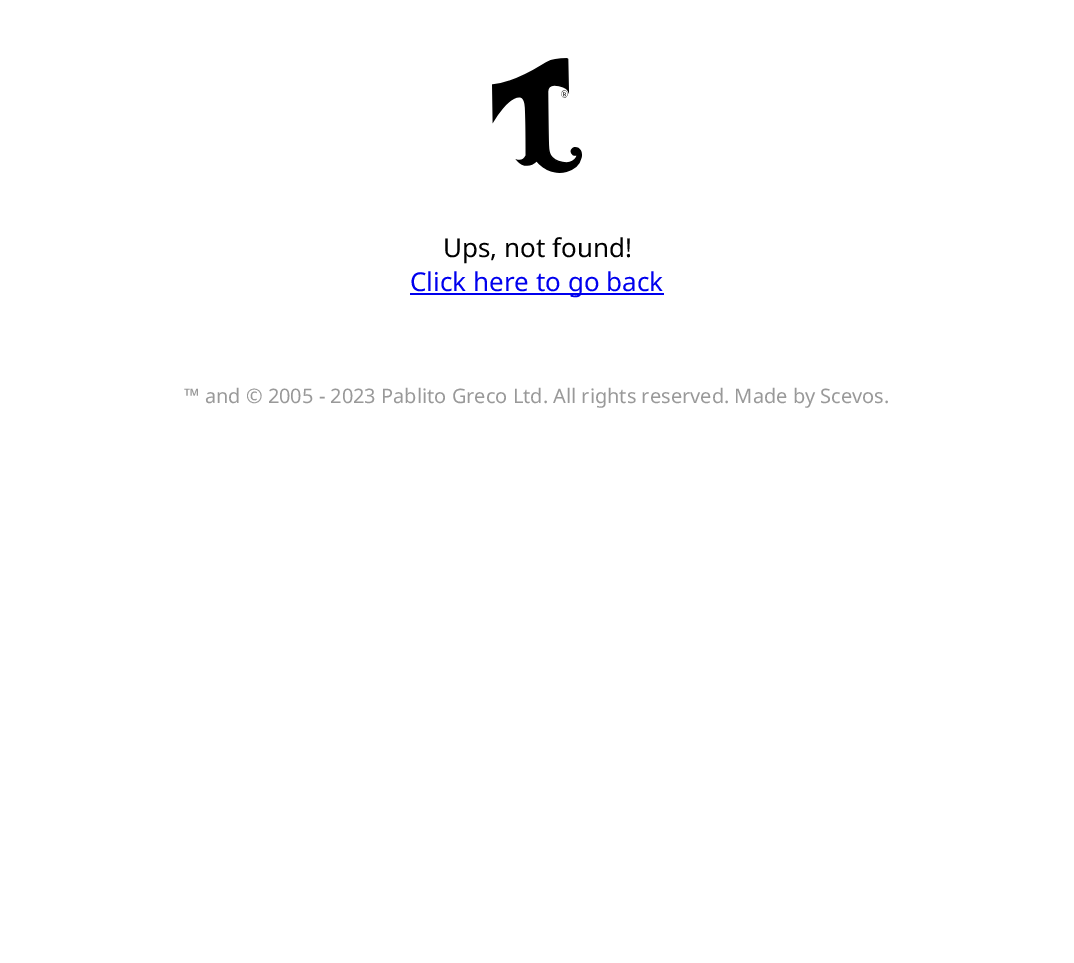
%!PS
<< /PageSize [1074 963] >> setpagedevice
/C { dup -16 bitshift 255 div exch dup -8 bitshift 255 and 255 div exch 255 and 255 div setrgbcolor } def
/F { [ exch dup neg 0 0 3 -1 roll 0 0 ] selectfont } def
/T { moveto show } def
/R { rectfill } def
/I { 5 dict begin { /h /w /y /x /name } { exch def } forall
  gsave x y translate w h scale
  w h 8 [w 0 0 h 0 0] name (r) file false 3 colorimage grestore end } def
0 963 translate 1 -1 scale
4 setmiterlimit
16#FFFFFF C
0 0 1074 963 R
(1.rgb) 492 58 90 115 I
/NotoSans-Regular 26 F
16#000000 C
(Ups, not found!) 443 257 T
16#0000EE C
410 293 254 2 R
(Click here to go back) 410 291 T
/NotoSans-Regular 20 F
16#999999 C
(™ and © 2005 - 2023 Pablito Greco Ltd. All rights reserved. Made by Scevos.) 184 403 T
showpage
